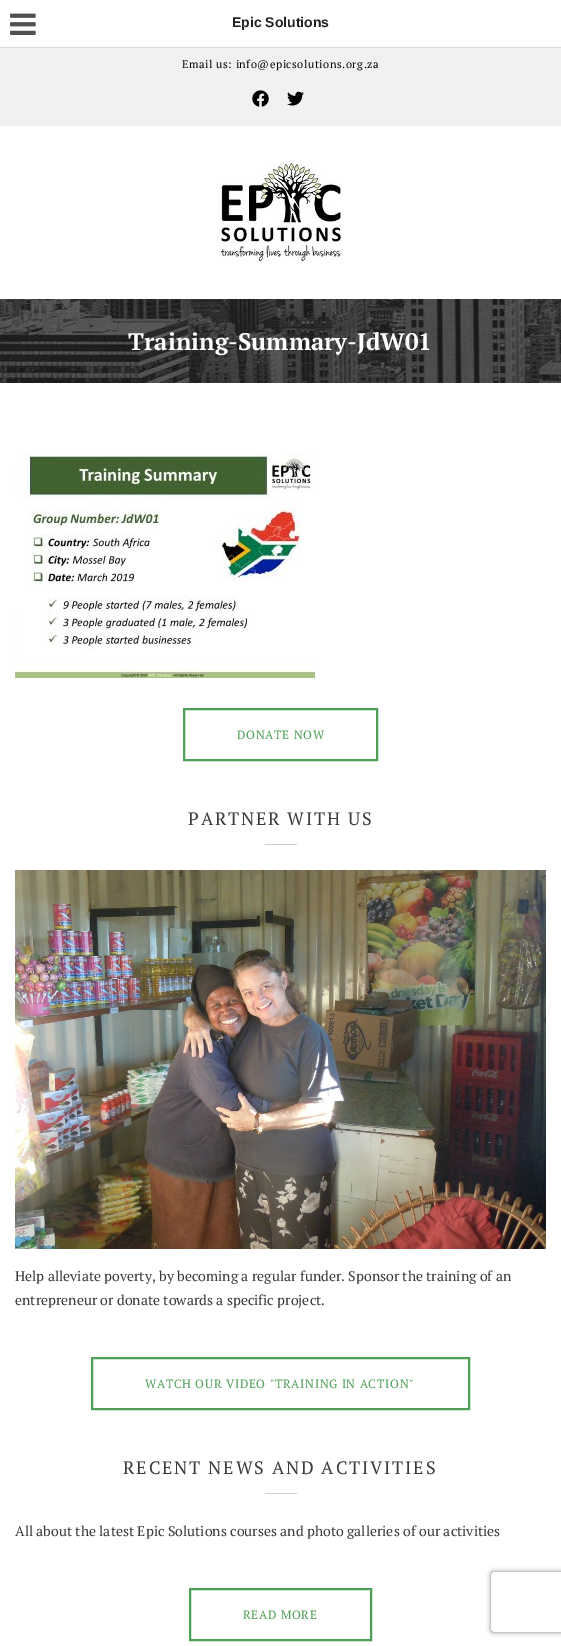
%!PS
<< /PageSize [561 1646] /PageUsesTransparency true >> setpagedevice
/m/moveto load def
/l/rlineto load def
/c/rcurveto load def
/z/closepath load def
/q/gsave load def
/Q_/grestore load def
/w/setlinewidth load def
/C { dup -16 bitshift 255 div exch dup -8 bitshift 255 and 255 div exch 255 and 255 div setrgbcolor } def
/F { [ exch dup neg 0 0 3 -1 roll 0 0 ] selectfont } def
/T { moveto show } def
/R { rectfill } def
/A { dup .setfillconstantalpha .setstrokeconstantalpha } def
/Q { 5 dict begin { /r /h /w /y /x } { exch def } forall
  x r add y moveto x w add y 2 copy h add r arct x w add y h add x 1 index r arct
  x y h add x y r arct x y 2 copy exch w add exch r arct closepath end } def
/S { 12 dict begin { /a /b /q /h /w /y /x } { exch def } forall gsave /was 0 def
  9 -2 -9 { dup b mul 4 div /e exch def 1 sub .425 mul 2.718 exch exp 1 add a .99 .min exch div /now exch def
    1 1 now sub 1 was sub div sub A /was now def
    w h .min e 2 mul add 0 gt { x e sub y e sub w e 2 mul add h e 2 mul add
      q e add b .6 mul add w h .min 2 div e add .min 0 .max Q fill } if } for grestore end } def
/I { 5 dict begin { /h /w /y /x /name } { exch def } forall
  gsave x y translate w h scale
  w h 8 [w 0 0 h 0 0] name (r) file false 3 colorimage grestore end } def
0 .pushpdf14devicefilter
0 1646 translate 1 -1 scale
4 setmiterlimit
16#FFFFFF C
0 0 561 1646 R
16#D9D9D9 C
0 47 561 1 R
(1.rgb) 10 13 26 22 I
/LiberationSans-Bold 14 F
16#222222 C
(Epic Solutions) 232 27 T
16#F1F1F1 C
0 48 561 78 R
/PTSerif-Regular 11 F
16#000000 C
182 68 m .55 0 (Email us: info@epicsolutions.org.za) ashow
(2.rgb) 252 90 17 17 I
(3.rgb) 287 91 17 15 I
(4.rgb) 221 163 120 98 I
(5.rgb) 0 299 561 84 I
/PTSerif-Bold 24 F
16#FFFFFF C
(Training-Summary-JdW01) 128 350 T
(6.rgb) 15 453 300 225 I
16#4E9F57 C
2 w
184 709 193 51 rectstroke
/PTSerif-Regular 12 F
237 739 m .7 0 (DONATE NOW) ashow
/PTSerif-Regular 18 F
16#3B3B3B C
188 825 m 1.8 0 (PARTNER WITH US) ashow
16#CCCCCC C
265 844 32 1 R
(7.rgb) 15 870 531 379 I
/PTSerif-Regular 14 F
16#3B3B3B C
(Help alleviate poverty, by becoming a regular funder. Sponsor the training of an) 15 1281 T
(entrepreneur or donate towards a specific project.) 15 1305 T
16#4E9F57 C
92 1358 377 51 rectstroke
/PTSerif-Regular 12 F
145 1388 m .7 0 (WATCH OUR VIDEO "TRAINING IN ACTION") ashow
/PTSerif-Regular 18 F
16#3B3B3B C
123 1474 m 1.8 0 (RECENT NEWS AND ACTIVITIES) ashow
16#CCCCCC C
265 1493 32 1 R
/PTSerif-Regular 14 F
16#3B3B3B C
(All about the latest Epic Solutions courses and photo galleries of our activities) 15 1536 T
16#4E9F57 C
190 1589 181 51 rectstroke
/PTSerif-Regular 12 F
243 1619 m .7 0 (READ MORE) ashow
q
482 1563 m 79 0 l 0 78 l -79 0 l z 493 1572 m 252 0 l 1 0 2 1 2 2 c 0 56 l 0 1 -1 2 -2 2 c -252 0 l -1 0 -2 -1 -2 -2 c 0 -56 l 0 -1 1 -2 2 -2 c z eoclip newpath
16#808080 C
491 1572 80 60 2 2.5 1 S
Q_
.poppdf14devicefilter showpage
